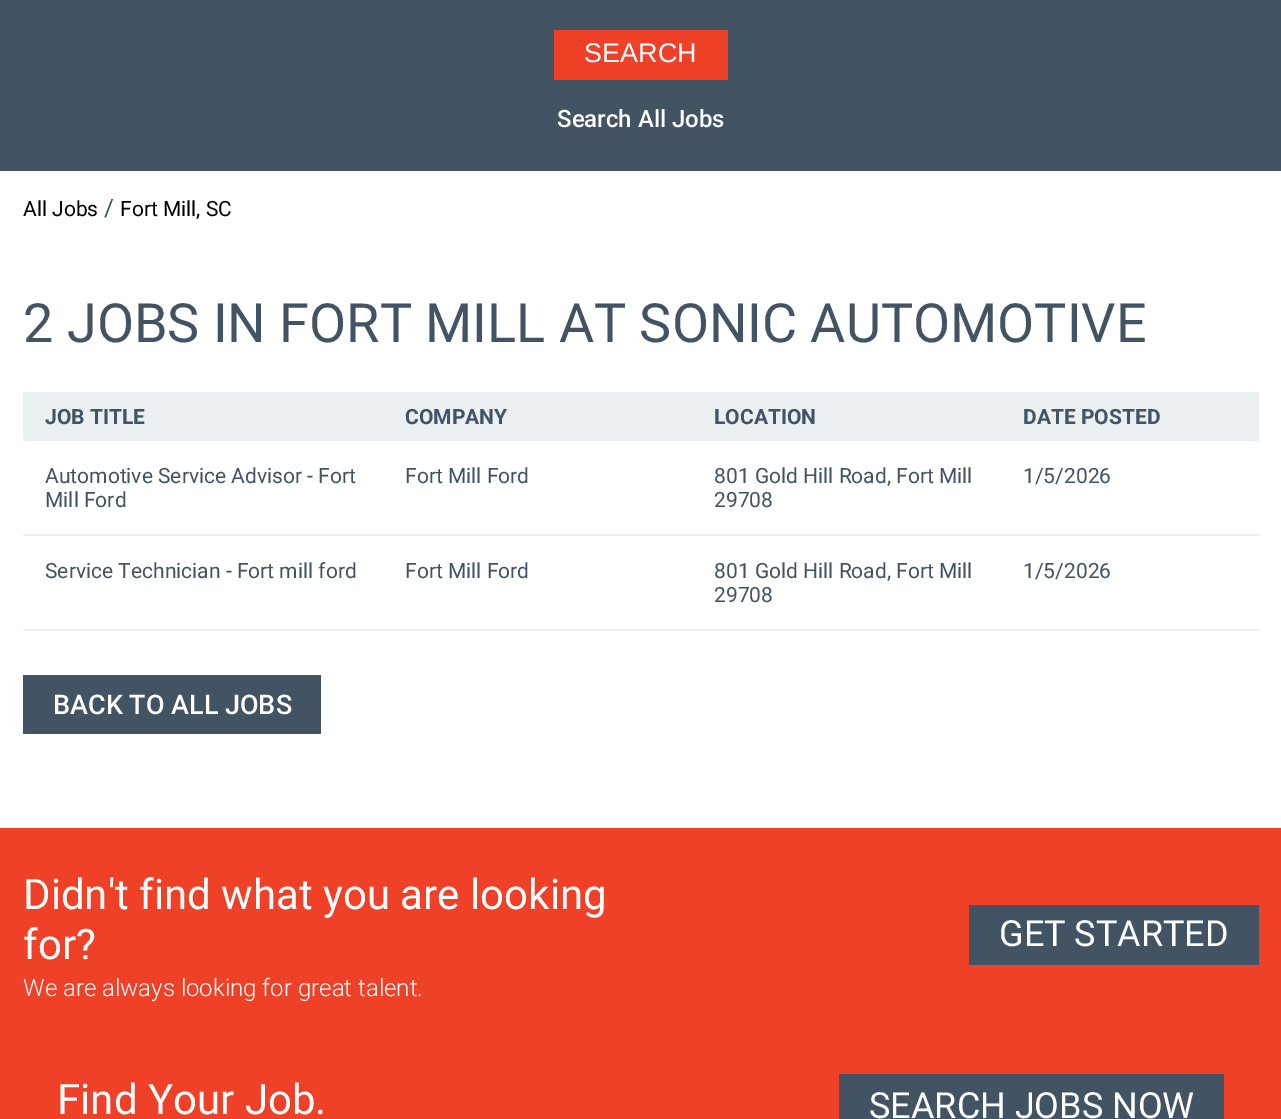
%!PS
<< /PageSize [1281 1119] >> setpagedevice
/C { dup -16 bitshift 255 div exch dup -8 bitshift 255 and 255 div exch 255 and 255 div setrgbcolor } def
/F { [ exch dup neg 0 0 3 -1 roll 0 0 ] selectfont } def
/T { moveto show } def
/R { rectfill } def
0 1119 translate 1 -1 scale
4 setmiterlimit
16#FFFFFF C
0 0 1281 1119 R
16#425363 C
0 0 1281 171 R
16#EE4128 C
554 30 174 50 R
/LiberationSans-Regular 27 F
16#FFFFFF C
(SEARCH) 584 62 T
/Roboto-Medium 24 F
(Search All Jobs) 557 127 T
/Roboto-Regular 21 F
16#000000 C
(All Jobs) 23 216 T
/Roboto-Regular 24 F
16#425363 C
(/) 104 216 T
/Roboto-Regular 21 F
16#000000 C
(Fort Mill, SC) 120 216 T
/Roboto-Regular 54 F
16#425363 C
(2 JOBS IN FORT MILL AT SONIC AUTOMOTIVE) 23 342 T
16#EAEFF2 C
23 392 1236 49 R
/Roboto-Bold 21 F
16#425363 C
(JOB TITLE) 45 424 T
(COMPANY) 405 424 T
(LOCATION) 714 424 T
(DATE POSTED) 1023 424 T
16#EAEFF2 C
23 534 1237 2 R
/Roboto-Regular 21 F
16#425363 C
(Automotive Service Advisor - Fort) 45 483 T
(Mill Ford) 45 507 T
(Fort Mill Ford) 405 483 T
(801 Gold Hill Road, Fort Mill) 714 483 T
(29708) 714 507 T
(1/5/2026) 1023 483 T
16#EAEFF2 C
23 629 1237 2 R
16#425363 C
(Service Technician - Fort mill ford) 45 578 T
(Fort Mill Ford) 405 578 T
(801 Gold Hill Road, Fort Mill) 714 578 T
(29708) 714 602 T
(1/5/2026) 1023 578 T
23 675 298 59 R
/Roboto-Medium 27 F
16#FFFFFF C
(BACK TO ALL JOBS) 53 714 T
16#EE4128 C
0 828 1281 291 R
/Roboto-Regular 42 F
16#FFFFFF C
(Didn't find what you are looking) 23 909 T
(for?) 23 959 T
/Roboto-Light 24 F
(We are always looking for great talent.) 23 996 T
16#425363 C
969 905 290 60 R
/Roboto-Regular 36 F
16#FFFFFF C
(GET STARTED) 999 946 T
/Roboto-Regular 42 F
(Find Your Job.) 57 1114 T
16#425363 C
839 1074 385 45 R
/Roboto-Regular 36 F
16#FFFFFF C
(SEARCH JOBS NOW) 869 1118 T
showpage
